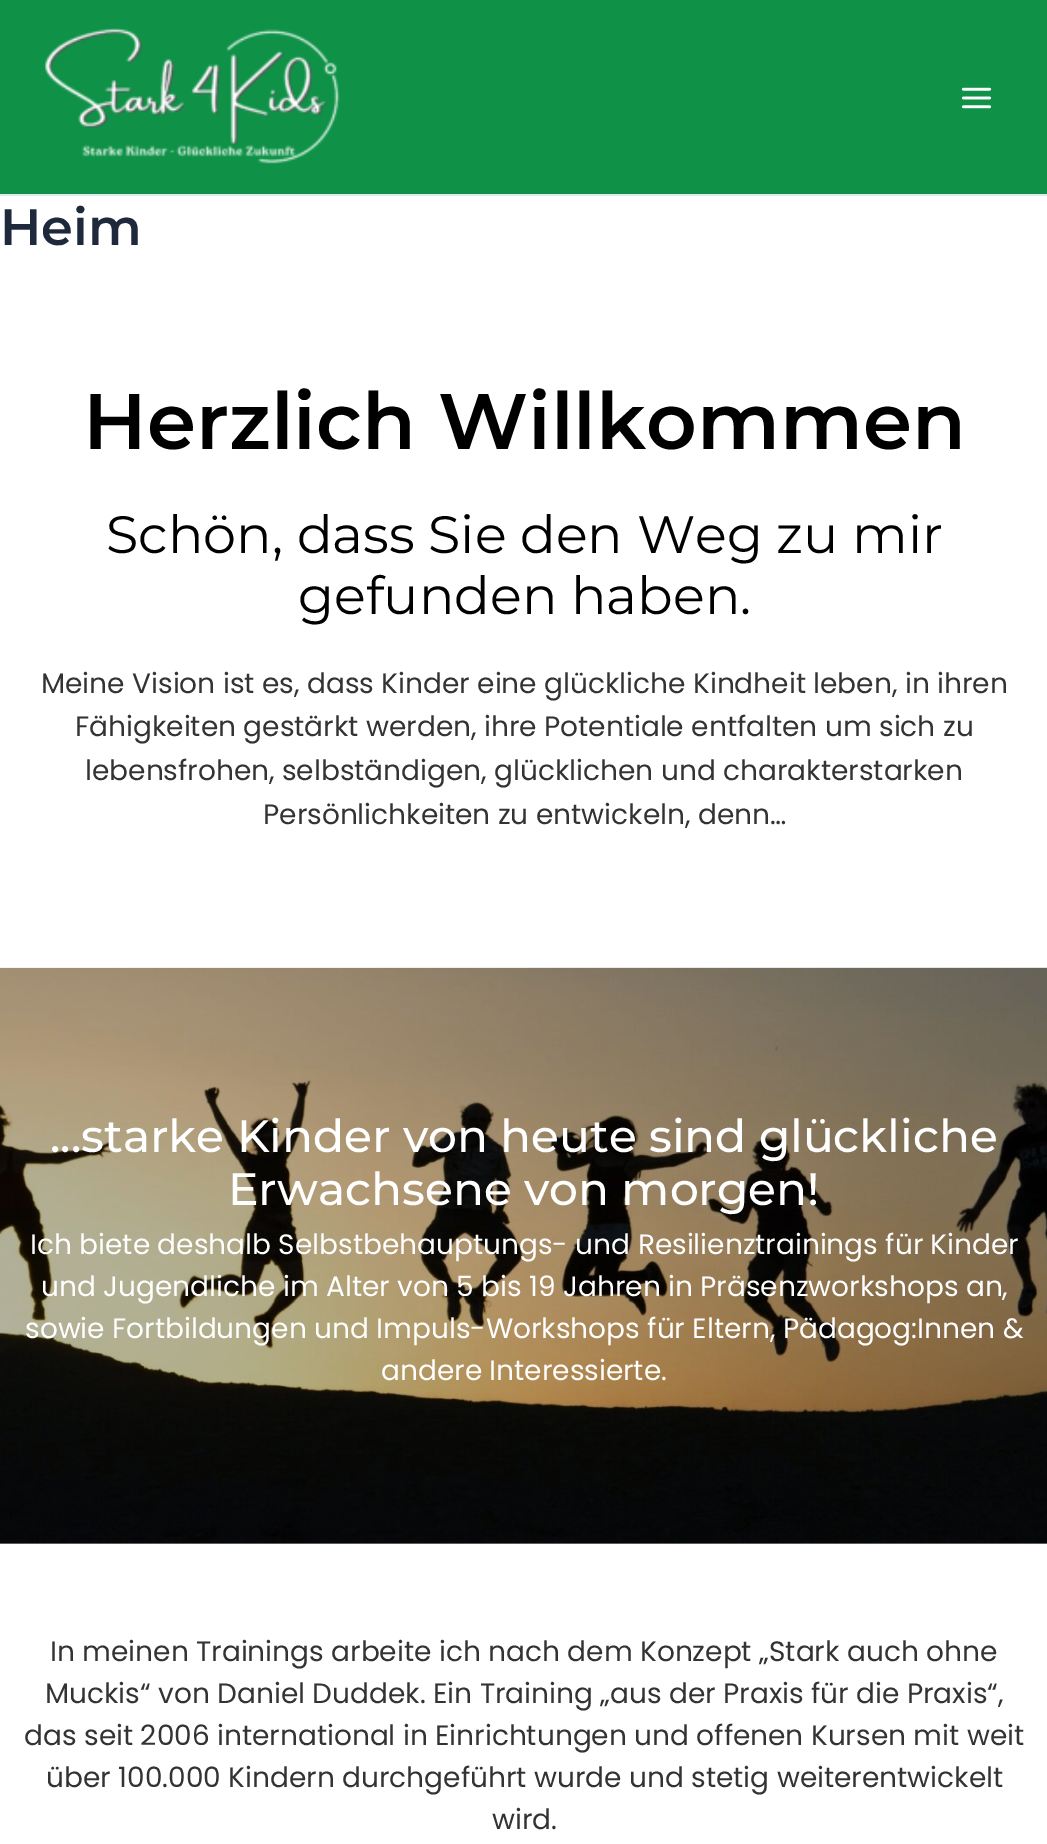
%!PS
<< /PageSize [1047 1844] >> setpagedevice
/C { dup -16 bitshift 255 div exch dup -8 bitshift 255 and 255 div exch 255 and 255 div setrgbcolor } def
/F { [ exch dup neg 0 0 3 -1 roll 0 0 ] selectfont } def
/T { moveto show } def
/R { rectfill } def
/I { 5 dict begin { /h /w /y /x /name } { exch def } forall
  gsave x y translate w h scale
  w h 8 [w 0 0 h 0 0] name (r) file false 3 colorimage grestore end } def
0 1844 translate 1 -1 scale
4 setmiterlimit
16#FFFFFF C
0 0 1047 1844 R
16#B3B3B3 C
0 1543 1047 1 R
16#0F9247 C
0 0 1047 194 R
16#E2E8F0 C
0 194 1047 2 R
(1.rgb) 44 28 296 136 I
(2.rgb) 961 87 31 22 I
/Montserrat-SemiBold 51 F
16#1E293B C
(Heim) 0 245 T
/Montserrat-SemiBold 78.75 F
16#000000 C
(Herzlich Willkommen) 83 449 T
/Montserrat-Regular 52.5 F
(Schön, dass Sie den Weg zu mir) 106 553 T
(gefunden haben.) 298 614 T
/Poppins-Regular 28 F
16#333333 C
(Meine Vision ist es, dass Kinder eine glückliche Kindheit leben, in ihren) 41 693 T
(Fähigkeiten gestärkt werden, ihre Potentiale entfalten um sich zu) 75 736 T
(lebensfrohen, selbständigen, glücklichen und charakterstarken) 85 780 T
(Persönlichkeiten zu entwickeln, denn…) 263 824 T
(3.rgb) 0 967 1047 577 I
/Montserrat-Medium 45.5 F
16#FFFFFF C
(...starke Kinder von heute sind glückliche) 50 1152 T
(Erwachsene von morgen!) 228 1205 T
/Poppins-Regular 28 F
(Ich biete deshalb Selbstbehauptungs- und Resilienztrainings für Kinder) 30 1254 T
(und Jugendliche im Alter von 5 bis 19 Jahren in Präsenzworkshops an,) 41 1296 T
(sowie Fortbildungen und Impuls-Workshops für Eltern, Pädagog:Innen &) 25 1338 T
(andere Interessierte.) 381 1380 T
16#333333 C
(In meinen Trainings arbeite ich nach dem Konzept „Stark auch ohne) 50 1661 T
(Muckis“ von Daniel Duddek. Ein Training „aus der Praxis für die Praxis“,) 45 1703 T
(das seit 2006 international in Einrichtungen und offenen Kursen mit weit) 24 1745 T
(über 100.000 Kindern durchgeführt wurde und stetig weiterentwickelt) 46 1787 T
(wird.) 492 1829 T
showpage
